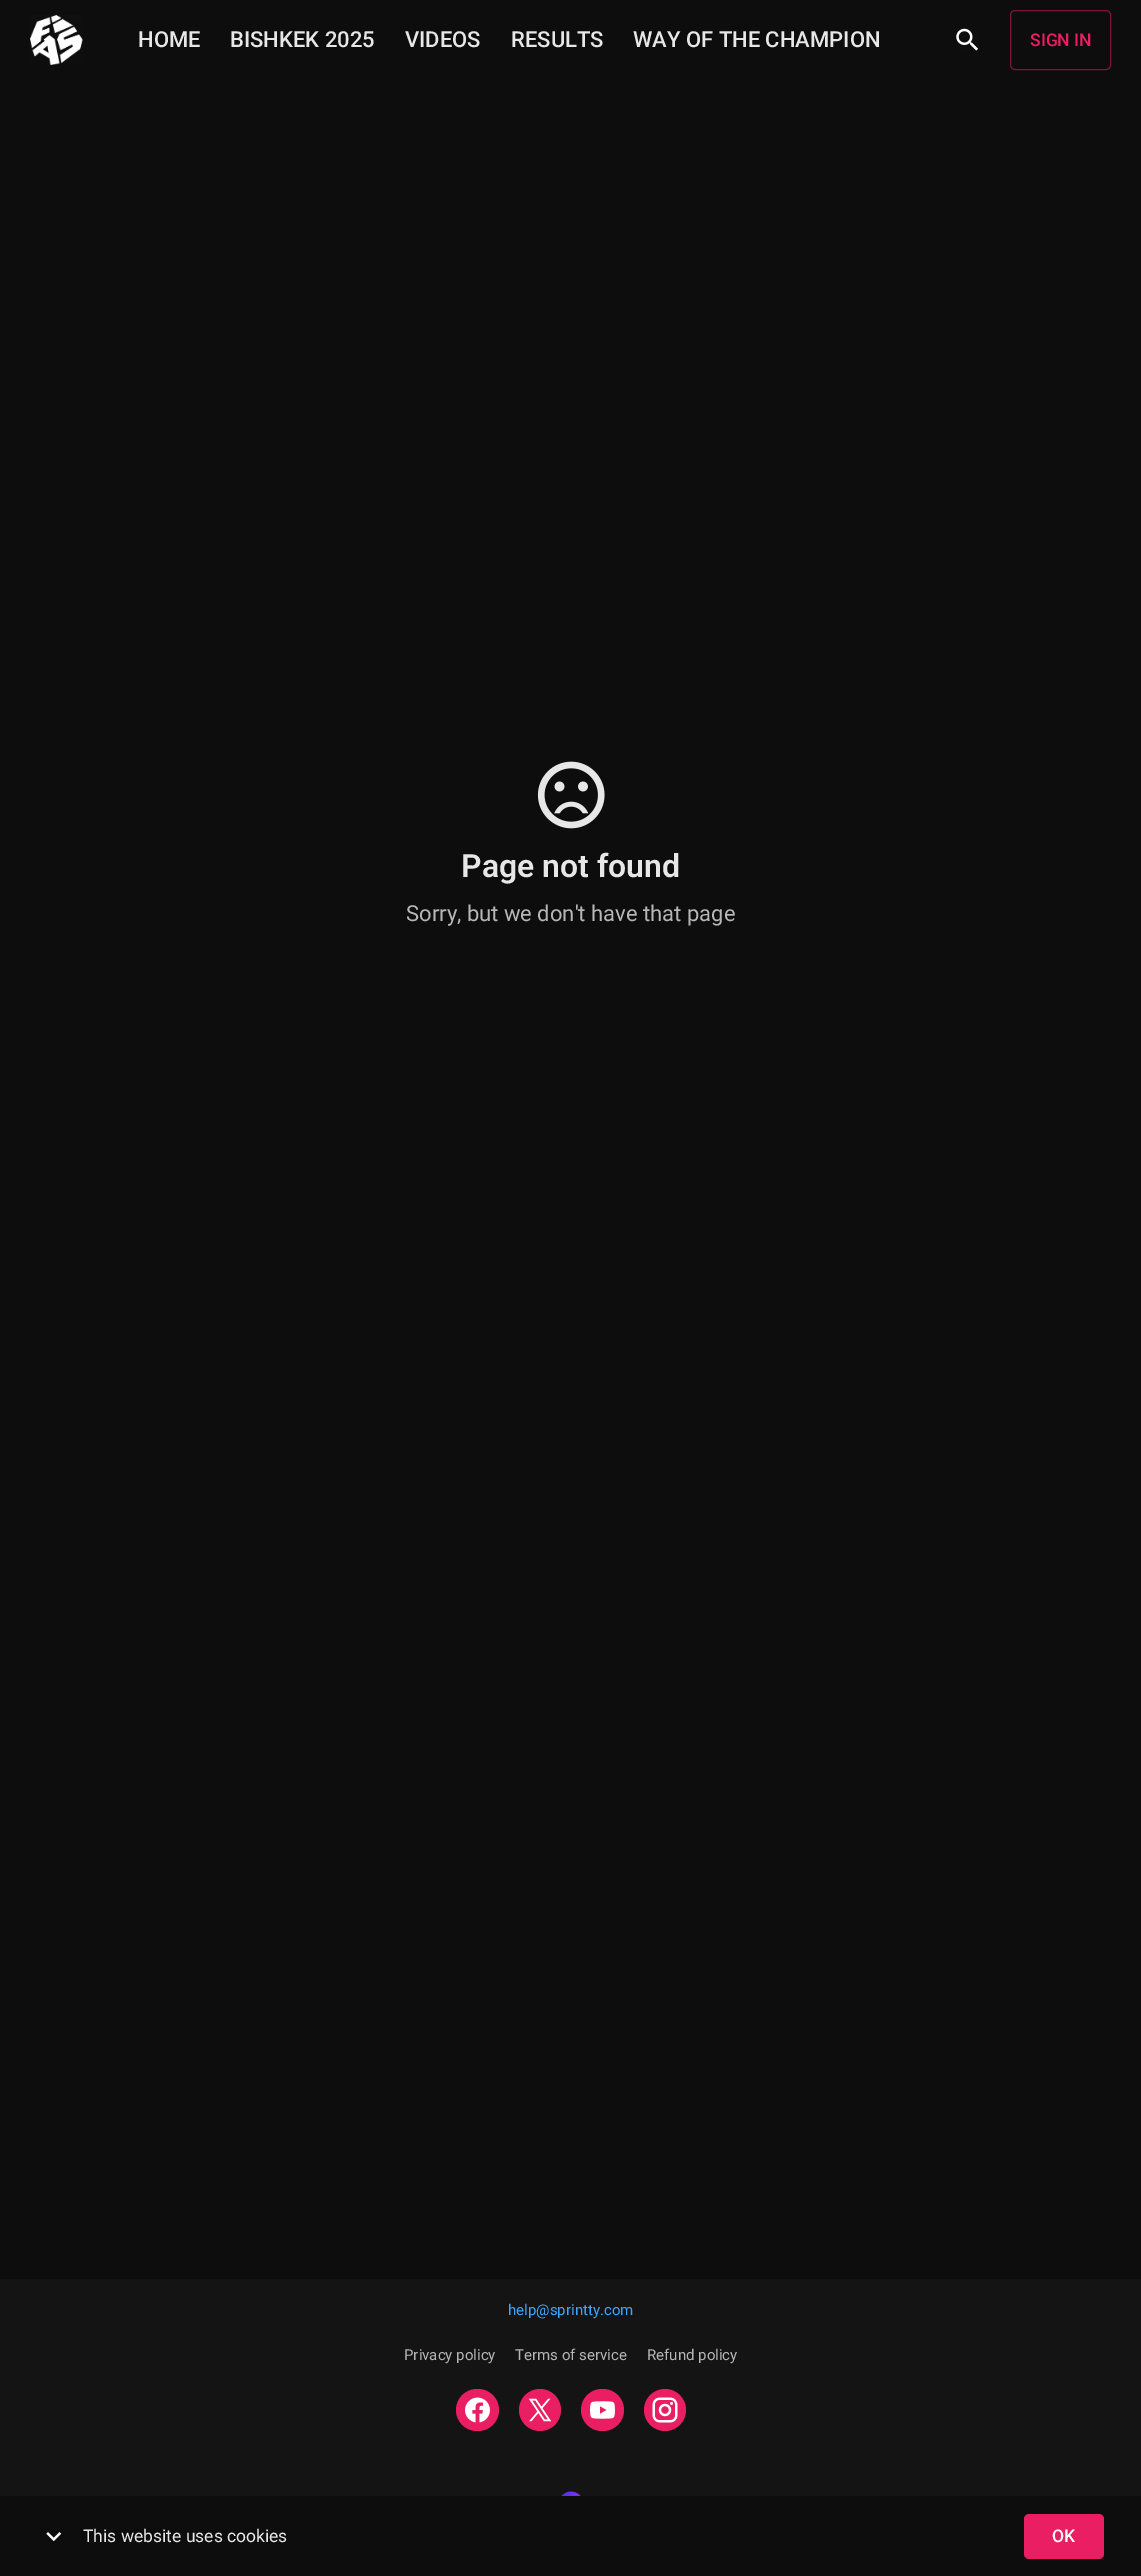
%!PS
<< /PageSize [1141 2576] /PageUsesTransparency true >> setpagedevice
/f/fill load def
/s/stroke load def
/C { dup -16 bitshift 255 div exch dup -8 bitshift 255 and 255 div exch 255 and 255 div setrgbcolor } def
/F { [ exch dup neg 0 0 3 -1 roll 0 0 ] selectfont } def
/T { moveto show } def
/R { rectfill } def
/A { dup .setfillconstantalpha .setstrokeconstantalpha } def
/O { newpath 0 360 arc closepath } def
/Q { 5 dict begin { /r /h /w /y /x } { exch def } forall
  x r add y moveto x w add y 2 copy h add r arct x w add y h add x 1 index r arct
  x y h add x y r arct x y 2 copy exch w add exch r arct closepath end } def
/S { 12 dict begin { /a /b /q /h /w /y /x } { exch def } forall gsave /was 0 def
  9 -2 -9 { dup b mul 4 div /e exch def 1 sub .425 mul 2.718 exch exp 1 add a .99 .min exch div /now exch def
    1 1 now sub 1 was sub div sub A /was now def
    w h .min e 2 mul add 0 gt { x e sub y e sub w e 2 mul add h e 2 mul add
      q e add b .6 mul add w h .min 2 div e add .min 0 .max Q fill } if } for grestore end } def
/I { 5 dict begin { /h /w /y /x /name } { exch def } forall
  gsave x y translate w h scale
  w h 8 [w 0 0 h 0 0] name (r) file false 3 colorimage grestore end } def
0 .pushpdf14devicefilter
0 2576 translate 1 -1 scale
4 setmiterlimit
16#0D0D0D C
0 0 1141 2576 R
(1.rgb) 30 15 53 50 I
/Roboto-Medium 22 F
16#E7E7E7 C
(HOME) 138 47 T
(BISHKEK 2025) 230 47 T
(VIDEOS) 405 47 T
(RESULTS) 511 47 T
(WAY OF THE CHAMPION) 633 47 T
(2.rgb) 956 28 22 23 I
16#7C1639 C
1010.5 10.5 100 59 4.5 Q s
/Roboto-Medium 17.5 F
16#E91E63 C
(SIGN IN) 1030 46 T
(3.rgb) 537 761 68 68 I
/Roboto-SemiBold 32 F
16#E7E7E7 C
(Page not found) 461 877 T
/Roboto-Regular 22 F
16#B6B6B6 C
(Sorry, but we don't have that page) 406 921 T
16#141414 C
0 2279 1141 217 R
/Roboto-Regular 15 F
16#3EA6FF C
(help@sprintty.com) 508 2315 T
16#B6B6B6 C
(Privacy policy) 404 2360 T
(Terms of service) 515 2360 T
(Refund policy) 647 2360 T
16#E91E63 C
456 2389 43 42 21 Q f
(4.rgb) 465 2397 25 26 I
540 2410 21 O f
(5.rgb) 528 2398 24 24 I
581 2389 43 42 21 Q f
(6.rgb) 590 2401 25 18 I
665 2410 21 O f
(7.rgb) 652 2397 26 26 I
(8.rgb) 561 2491 20 5 I
16#000000 C
0 2498 1141 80 0 6 .12 S
(9.rgb) 46 2532 16 10 I
/Roboto-Regular 17.5 F
16#E7E7E7 C
(This website uses cookies) 83 2542 T
16#E91E63 C
1024 2514 80 45 5 Q f
/Roboto-Medium 17.5 F
16#FFFFFF C
(OK) 1052 2542 T
.poppdf14devicefilter showpage
